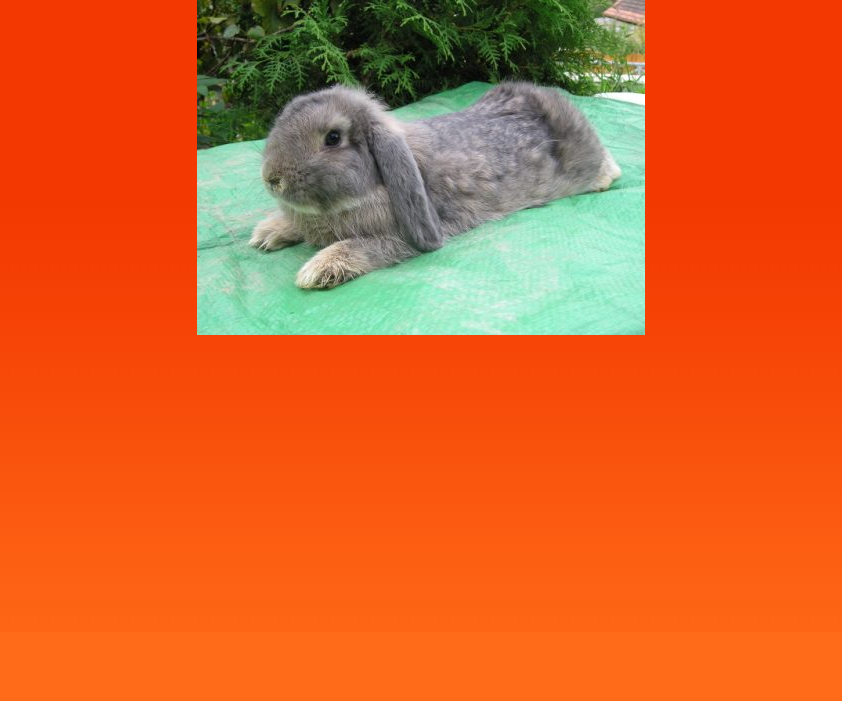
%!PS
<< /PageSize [842 701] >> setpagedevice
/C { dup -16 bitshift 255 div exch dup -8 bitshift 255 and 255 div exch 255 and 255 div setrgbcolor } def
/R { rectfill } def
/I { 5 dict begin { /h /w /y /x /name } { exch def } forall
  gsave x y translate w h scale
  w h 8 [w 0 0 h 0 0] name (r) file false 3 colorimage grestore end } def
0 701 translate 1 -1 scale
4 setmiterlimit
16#FF6B19 C
0 0 842 701 R
(1.rgb) 0 335 842 297 I
(2.rgb) 0 0 842 335 I
(3.rgb) 197 0 448 335 I
showpage
